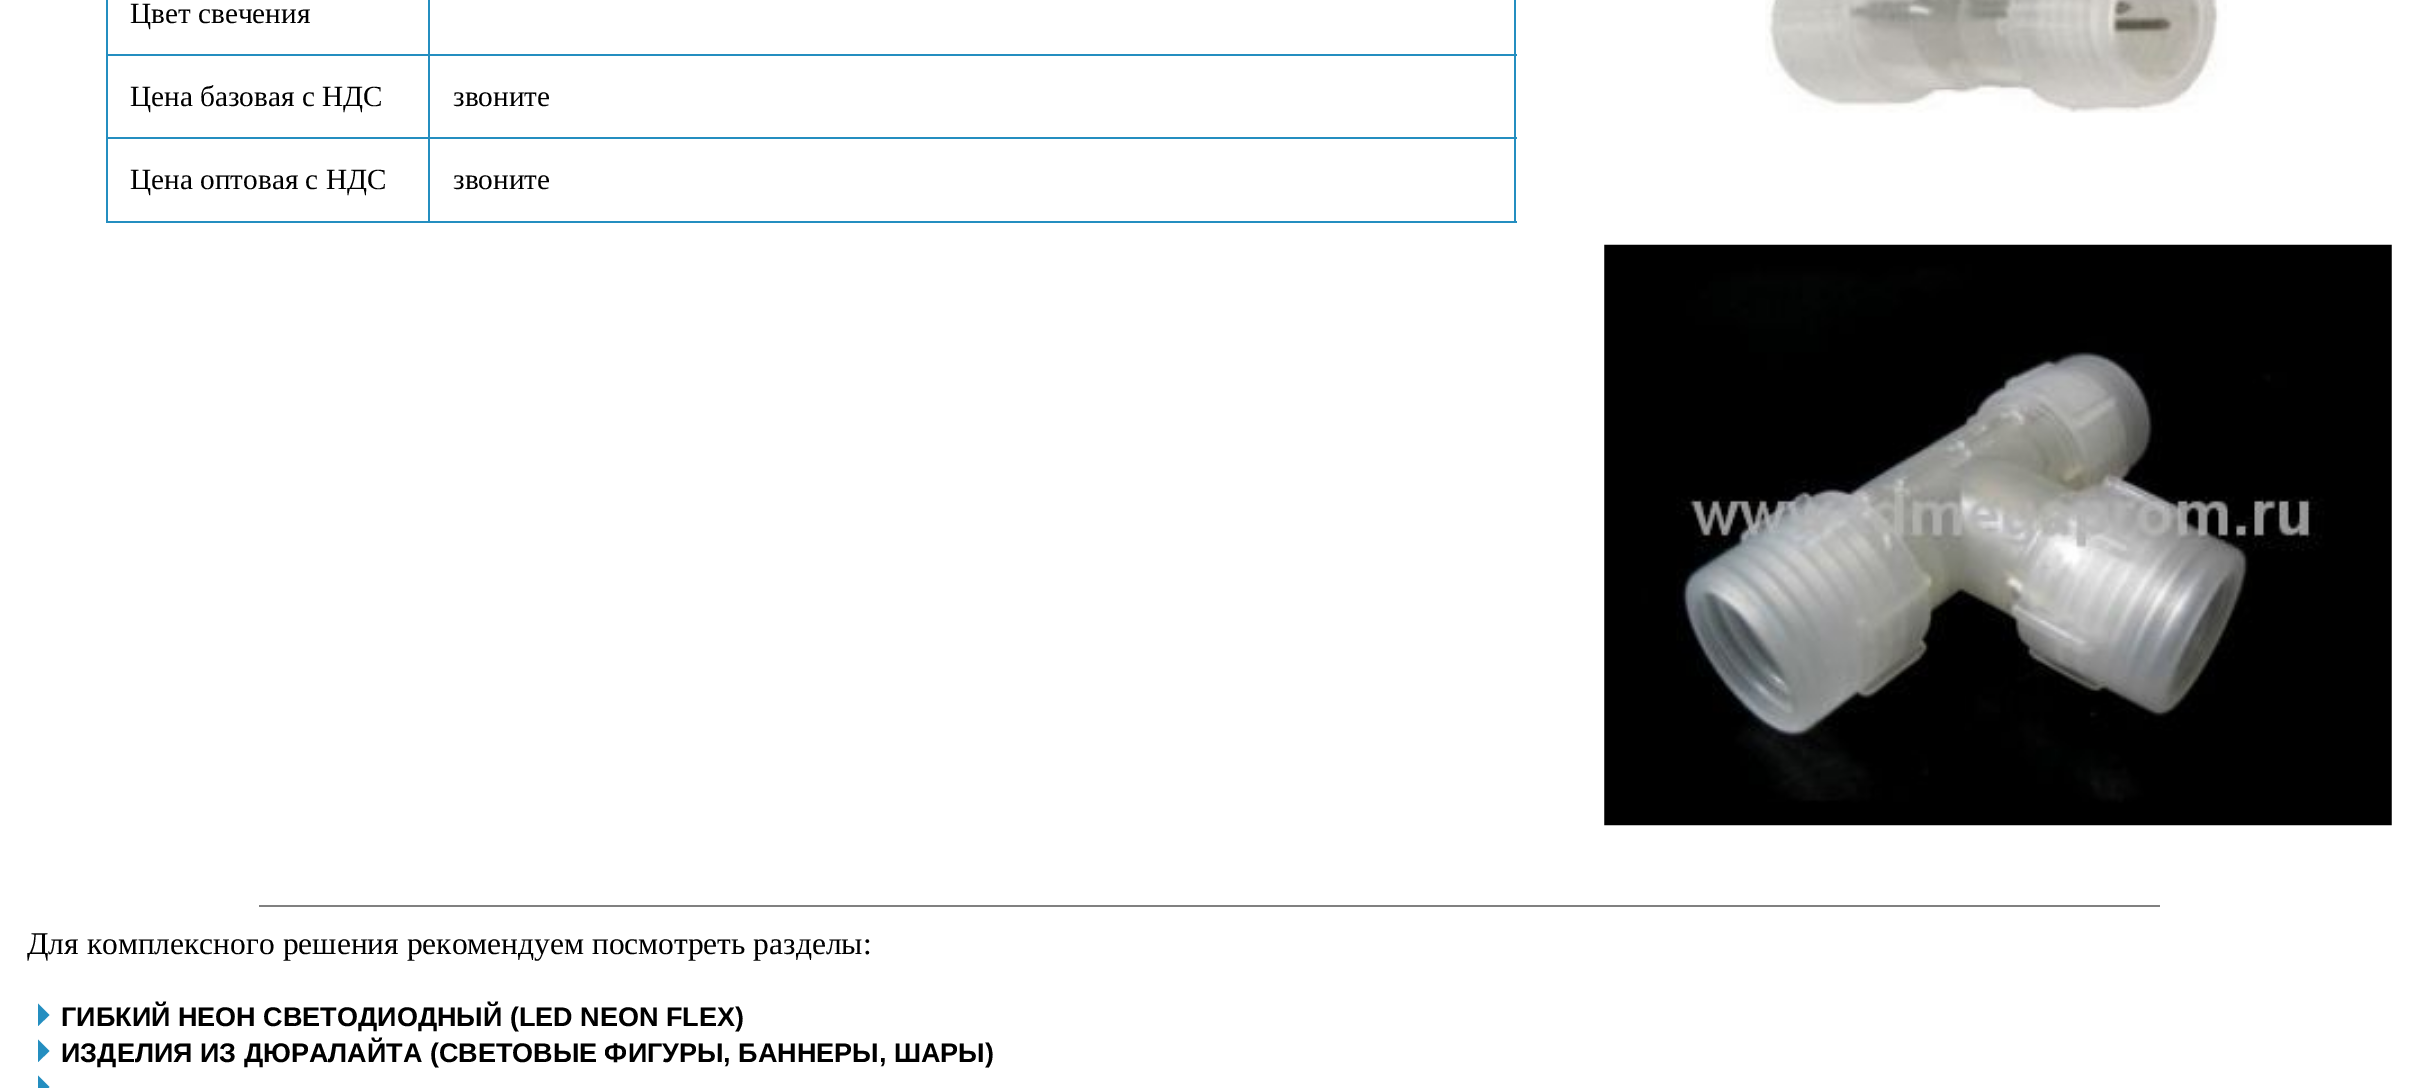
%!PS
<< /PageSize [2418 1088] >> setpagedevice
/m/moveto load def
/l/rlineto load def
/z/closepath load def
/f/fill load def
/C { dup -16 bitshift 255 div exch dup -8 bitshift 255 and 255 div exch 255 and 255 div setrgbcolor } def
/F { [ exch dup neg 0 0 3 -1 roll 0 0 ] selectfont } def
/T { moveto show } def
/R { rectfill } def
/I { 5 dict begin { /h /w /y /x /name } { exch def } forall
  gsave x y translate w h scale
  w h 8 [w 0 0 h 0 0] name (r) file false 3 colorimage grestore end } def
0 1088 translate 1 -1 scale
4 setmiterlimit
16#FFFFFF C
0 0 2418 1088 R
16#248EC0 C
1514 0 2 223 R
106 221 1411 2 R
106 0 2 223 R
/LiberationSerif-Regular 29.25 F
16#000000 C
(Цвет свечения) 130 23 T
16#248EC0 C
428 54 1089 2 R
428 137 1089 2 R
428 137 2 86 R
106 137 324 2 R
428 54 2 86 R
106 54 324 2 R
428 0 2 56 R
16#000000 C
(Цена базовая с НДС) 130 106 T
(звоните) 453 106 T
(Цена оптовая с НДС) 130 189 T
(звоните) 453 189 T
(1.rgb) 1765 0 462 113 I
(2.rgb) 1604 244 788 582 I
16#808080 C
259 905 1901 2 R
/LiberationSerif-Regular 31.5 F
16#000000 C
(Для комплексного решения рекомендуем посмотреть разделы:) 27 954 T
16#248EC0 C
38 1026 m 0 -22.5 l 11.5 11.5 l z f
/LiberationSans-Bold 27 F
16#000000 C
(ГИБКИЙ НЕОН СВЕТОДИОДНЫЙ \(LED NEON FLEX\)) 61 1026 T
16#248EC0 C
38 1062 m 0 -22.5 l 11.5 11.5 l z f
16#000000 C
(ИЗДЕЛИЯ ИЗ ДЮРАЛАЙТА \(СВЕТОВЫЕ ФИГУРЫ, БАННЕРЫ, ШАРЫ\)) 61 1062 T
16#248EC0 C
38 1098 m 0 -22.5 l 11.5 11.5 l z f
showpage
